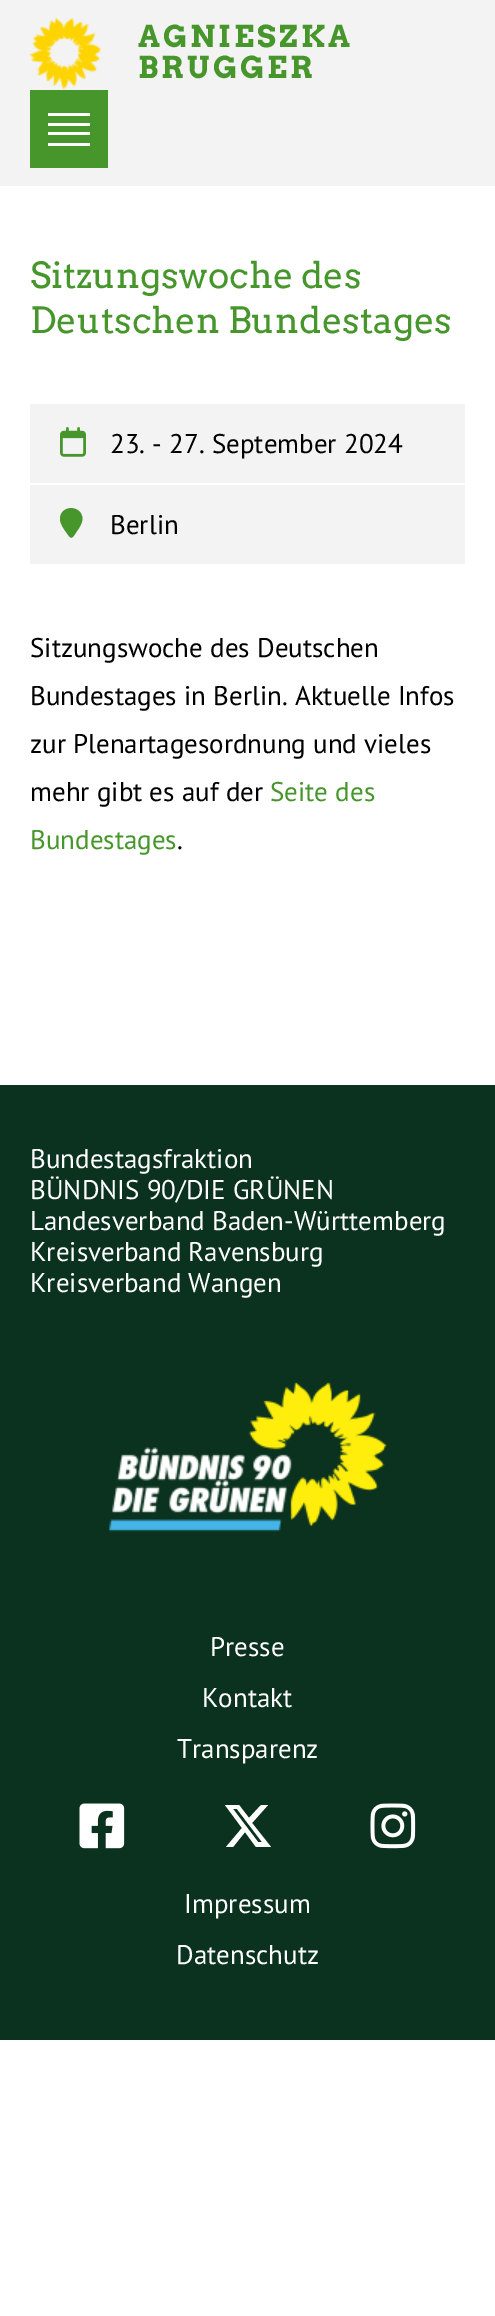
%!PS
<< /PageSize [495 2316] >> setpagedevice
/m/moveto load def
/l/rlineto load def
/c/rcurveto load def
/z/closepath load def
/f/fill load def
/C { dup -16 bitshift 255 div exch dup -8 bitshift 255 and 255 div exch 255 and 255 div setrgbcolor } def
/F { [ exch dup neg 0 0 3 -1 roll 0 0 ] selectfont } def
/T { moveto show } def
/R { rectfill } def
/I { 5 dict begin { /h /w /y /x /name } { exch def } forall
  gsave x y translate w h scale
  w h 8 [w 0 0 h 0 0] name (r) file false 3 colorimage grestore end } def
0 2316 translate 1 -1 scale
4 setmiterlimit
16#FFFFFF C
0 0 495 2316 R
16#F3F3F3 C
0 0 495 186 R
(1.rgb) 30 18 71 72 I
/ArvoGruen-Regular 30 F
16#46962B C
138 47 m 3 0 (AGNIESZKA) ashow
138 78 m 3 0 (BRUGGER) ashow
30 90 78 78 R
16#FFFFFF C
48 113 42 3 R
48 123 42 3 R
48 132 42 3 R
48 143 42 3 R
/Arvo-Regular 36 F
16#46962B C
(Sitzungswoche des) 30 288 T
(Deutschen Bundestages) 30 333 T
16#F3F3F3 C
30 404 435 79 R
(2.rgb) 60 427 26 30 I
/PTSans-Regular 27 F
16#000000 C
(23. - 27. September 2024) 110 453 T
16#F3F3F3 C
30 485 435 79 R
16#46962B C
82.5 519 m -.5 4.5 -3 8.5 -5.5 12 c -5.5 8.5 -5.5 9 -11 1 c -2.5 -3.5 -6 -8.5 -6 -13 c 0 -14.5 22 -14.5 22.5 0 c z f
16#000000 C
(Berlin) 110 534 T
(Sitzungswoche des Deutschen) 30 657 T
(Bundestages in Berlin. Aktuelle Infos) 30 705 T
(zur Plenartagesordnung und vieles) 30 753 T
(mehr gibt es auf der) 30 801 T
16#46962B C
(Seite des) 270 801 T
(Bundestages) 30 849 T
16#000000 C
(.) 177 849 T
16#0A321E C
0 1085 495 955 R
16#FFFFFF C
(Bundestagsfraktion) 30 1168 T
(BÜNDNIS 90/DIE GRÜNEN) 30 1199 T
(Landesverband Baden-Württemberg) 30 1230 T
(Kreisverband Ravensburg) 30 1261 T
(Kreisverband Wangen) 30 1292 T
(3.rgb) 108 1382 279 150 I
(Presse) 210 1656 T
(Kontakt) 202 1707 T
(Transparenz) 177 1758 T
(4.rgb) 79 1803 46 46 I
261 1805 m 7 0 l -16 18 l 19 24 l -15 0 l -11 -15 l -12 15 l -7 0 l 16 -19 l -17 -23 l 14 0 l 10 13 l z 258 1842 m 4 0 l -25 -33 l -4 0 l z f
(5.rgb) 370 1803 46 46 I
(Impressum) 184 1913 T
(Datenschutz) 176 1964 T
showpage
